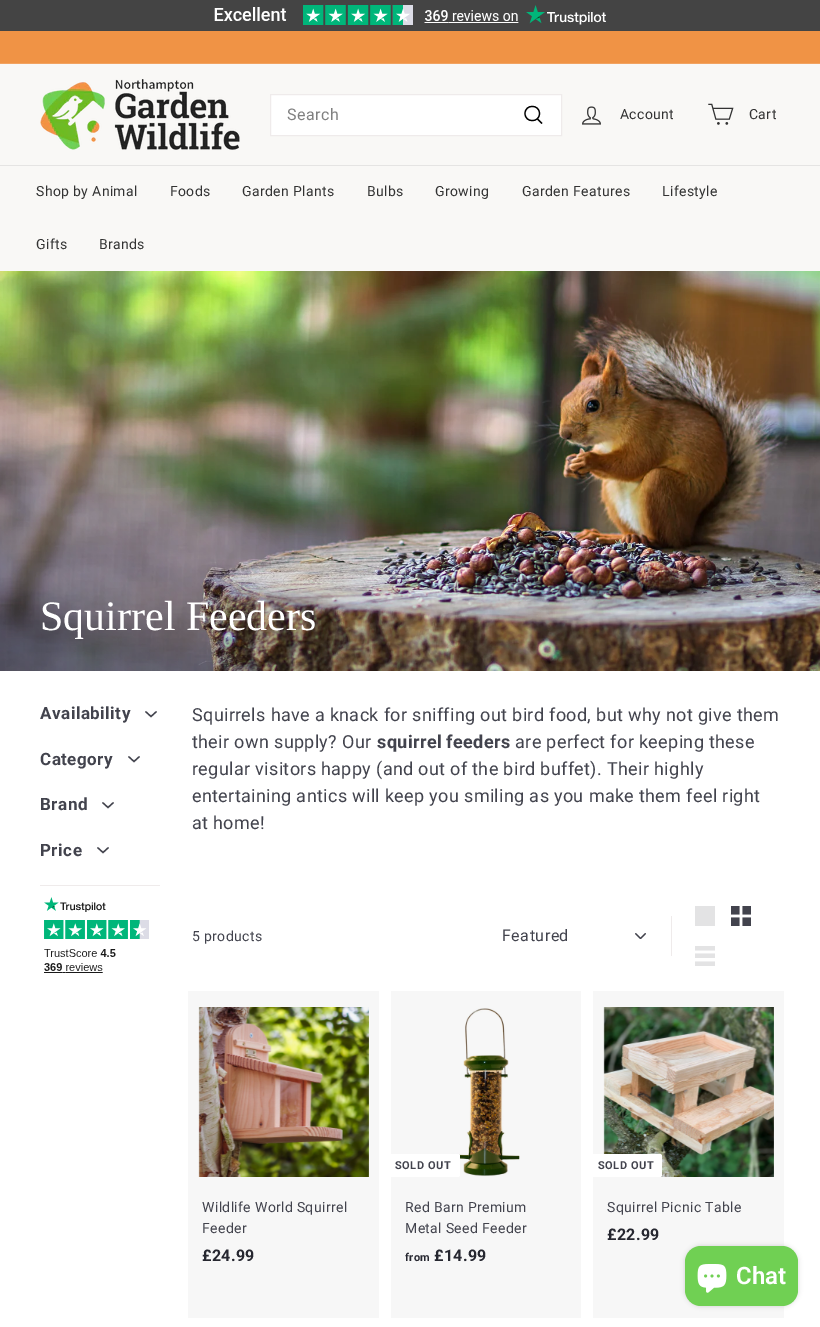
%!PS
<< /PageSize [820 1327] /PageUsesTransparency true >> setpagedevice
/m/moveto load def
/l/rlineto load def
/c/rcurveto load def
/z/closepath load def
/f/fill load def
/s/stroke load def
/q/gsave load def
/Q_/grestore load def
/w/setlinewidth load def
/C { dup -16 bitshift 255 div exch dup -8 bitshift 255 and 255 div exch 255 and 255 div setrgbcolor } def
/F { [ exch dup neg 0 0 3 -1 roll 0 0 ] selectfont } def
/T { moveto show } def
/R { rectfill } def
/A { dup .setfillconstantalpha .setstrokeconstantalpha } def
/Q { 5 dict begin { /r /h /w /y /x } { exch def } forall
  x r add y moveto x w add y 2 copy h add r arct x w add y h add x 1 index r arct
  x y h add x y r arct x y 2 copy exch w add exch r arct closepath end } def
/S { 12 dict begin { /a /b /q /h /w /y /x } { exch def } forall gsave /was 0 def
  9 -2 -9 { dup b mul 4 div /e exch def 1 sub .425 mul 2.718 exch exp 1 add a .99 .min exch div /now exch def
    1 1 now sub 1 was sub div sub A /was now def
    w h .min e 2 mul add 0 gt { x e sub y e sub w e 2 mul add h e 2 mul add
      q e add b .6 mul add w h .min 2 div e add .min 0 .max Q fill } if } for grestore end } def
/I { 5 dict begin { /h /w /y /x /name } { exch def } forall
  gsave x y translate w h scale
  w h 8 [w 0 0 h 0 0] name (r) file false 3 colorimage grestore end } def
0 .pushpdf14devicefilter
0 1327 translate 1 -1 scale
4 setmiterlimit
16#FFFFFF C
0 0 820 1327 R
16#F7F7F7 C
593 991 191 327 R
391 991 190 327 R
188 991 191 327 R
16#444444 C
0 0 820 31 R
(1.rgb) 214 5 392 20 I
16#F09345 C
0 31 820 32 R
16#F2A361 C
0 63 820 1 R
16#F9F8F6 C
0 64 820 101 R
(2.rgb) 40 79 200 71 I
16#FFFFFF C
270.5 94.5 m 291 0 l 0 41 l -291 0 l z q f Q_
16#EFEBEB C
s
/Roboto-Regular 16 F
16#808080 C
287 120 m .5 0 (Search) ashow
16#000000 C
1.2 w
539.5 113.5 m 0 9.5 -14.5 9.5 -14.5 0 c 0 -9.5 14.5 -9.5 14.5 0 c z 542 123.5 m -4.5 -4.5 l s
(3.rgb) 582 106 19 19 I
/Roboto-Regular 14 F
16#333333 C
620 119 m .35 0 (Account) ashow
(4.rgb) 708 103 26 22 I
749 119 m .35 0 (Cart) ashow
16#F9F8F6 C
0 166 820 105 R
16#E5E4E3 C
0 165 820 1 R
16#333333 C
36 196 m .35 0 (Shop by Animal) ashow
170 196 m .35 0 (Foods) ashow
242 196 m .35 0 (Garden Plants) ashow
367 196 m .35 0 (Bulbs) ashow
435 196 m .35 0 (Growing) ashow
522 196 m .35 0 (Garden Features) ashow
662 196 m .35 0 (Lifestyle) ashow
36 249 m .35 0 (Gifts) ashow
99 249 m .35 0 (Brands) ashow
(5.rgb) 0 271 820 400 I
/LiberationSerif-Regular 42 F
16#FFFFFF C
(Squirrel Feeders) 40 630 T
/Roboto-Bold 17 F
16#42434D C
40 719 m .5 0 (Availability) ashow
1.3 w
145.5 711.5 m 5.5 5 l 5.5 -5 l s
40 765 m .5 0 (Category) ashow
128.5 756.5 m 5.5 5 l 5.5 -5 l s
40 810 m .5 0 (Brand) ashow
102.5 802.5 m 5.5 5 l 5.5 -5 l s
40 856 m .5 0 (Price) ashow
97.5 847.5 m 5.5 5 l 5.5 -5 l s
16#EFEBEB C
40 885 120 1 R
(6.rgb) 44 897 105 76 I
/Roboto-Regular 18 F
16#42434D C
192 721 m .35 0 (Squirrels have a knack for sniffing out bird food, but why not give them) ashow
192 748 m .35 0 (their own supply? Our) ashow
/Roboto-Bold 18 F
377 748 m .35 0 (squirrel feeders) ashow
/Roboto-Regular 18 F
515 748 m .35 0 (are perfect for keeping these) ashow
192 775 m .35 0 (regular visitors happy \(and out of the bird buffet\). Their highly) ashow
192 802 m .35 0 (entertaining antics will keep you smiling as you make them feel right) ashow
192 829 m .35 0 (at home!) ashow
/Roboto-Regular 14 F
192 941 m .35 0 (5 products) ashow
16#EFEBEB C
671 916 1 40 R
(7.rgb) 635 933 11 6 I
/Roboto-Regular 16 F
16#42434D C
502 941 m .5 0 (Featured) ashow
16#E3E3E4 C
695 906 20 20 R
(8.rgb) 731 906 20 20 I
(9.rgb) 695 946 20 20 I
(10.rgb) 198 1007 171 170 I
/Roboto-Regular 14 F
16#42434D C
202 1212 m .35 0 (Wildlife World Squirrel) ashow
202 1233 m .35 0 (Feeder) ashow
/Roboto-Bold 16 F
16#262730 C
202 1261 m .35 0 (£24.99) ashow
(11.rgb) 451 1008 69 169 I
16#FFFFFF C
387 1154 m 71 0 l 1 0 2 1 2 2 c 0 19 l 0 1 -1 2 -2 2 c -71 0 l z f
/Roboto-Bold 11 F
16#42434D C
395 1169 m .5 0 (SOLD OUT) ashow
/Roboto-Regular 14 F
405 1212 m .35 0 (Red Barn Premium) ashow
405 1233 m .35 0 (Metal Seed Feeder) ashow
/Roboto-Bold 11 F
16#262730 C
405 1261 m .35 0 (from) ashow
/Roboto-Bold 16 F
434 1261 m .35 0 (£14.99) ashow
(12.rgb) 603 1007 171 170 I
16#FFFFFF C
590 1154 m 70 0 l 1 0 2 1 2 2 c 0 19 l 0 1 -1 2 -2 2 c -70 0 l z f
/Roboto-Bold 11 F
16#42434D C
598 1169 m .5 0 (SOLD OUT) ashow
/Roboto-Regular 14 F
607 1212 m .35 0 (Squirrel Picnic Table) ashow
/Roboto-Bold 16 F
16#262730 C
607 1240 m .35 0 (£22.99) ashow
16#000000 C
685 1246 113 60 16 2.5 .15 S
16#70D053 C
685 1246 113 60 16 Q f
(13.rgb) 697 1264 30 29 I
/Roboto-SemiBold 24 F
16#FFFFFF C
(Chat) 736 1284 T
.poppdf14devicefilter showpage
